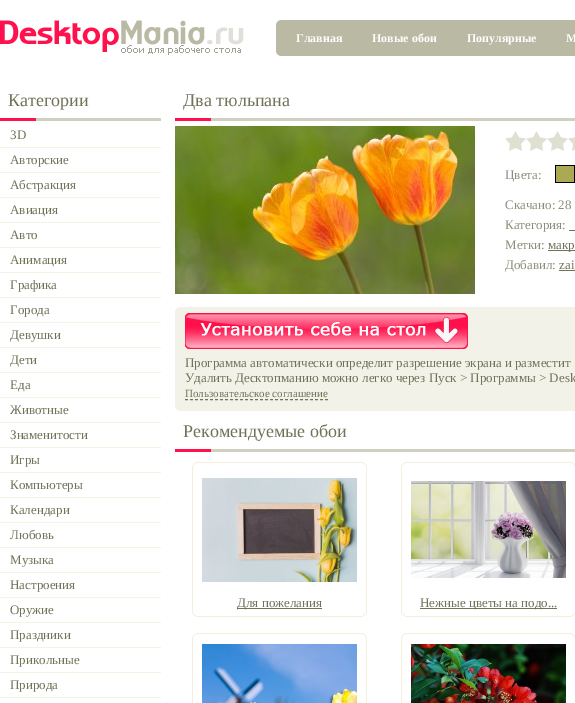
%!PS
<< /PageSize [575 703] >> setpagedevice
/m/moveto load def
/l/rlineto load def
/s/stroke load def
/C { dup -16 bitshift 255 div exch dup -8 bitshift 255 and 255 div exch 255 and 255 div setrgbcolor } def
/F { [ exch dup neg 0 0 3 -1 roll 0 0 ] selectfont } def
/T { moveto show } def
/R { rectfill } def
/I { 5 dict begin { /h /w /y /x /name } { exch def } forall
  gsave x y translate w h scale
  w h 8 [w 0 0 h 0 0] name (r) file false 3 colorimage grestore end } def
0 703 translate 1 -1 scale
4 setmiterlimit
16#FFFFFF C
0 0 575 703 R
(1.rgb) 0 20 244 35 I
16#BABAA4 C
276 20 299 36 R
(2.rgb) 276 20 5 5 I
/LiberationSerif-Bold 12 F
16#FFFFFF C
(Главная) 296 42 T
(Новые обои) 372 42 T
(Популярные) 467 42 T
(М) 566 42 T
(3.rgb) 276 51 5 5 I
16#D0D0C0 C
36 118 125 3 R
/LiberationSerif-Regular 18 F
16#727258 C
(Категории) 8 106 T
16#FF114D C
0 118 36 3 R
16#F3F3E6 C
0 147 161 1 R
/LiberationSerif-Regular 13 F
16#727258 C
(3D) 10 139 T
16#F3F3E6 C
0 172 161 1 R
16#727258 C
(Авторские) 10 164 T
16#F3F3E6 C
0 197 161 1 R
16#727258 C
(Абстракция) 10 189 T
16#F3F3E6 C
0 222 161 1 R
16#727258 C
(Авиация) 10 214 T
16#F3F3E6 C
0 247 161 1 R
16#727258 C
(Авто) 10 239 T
16#F3F3E6 C
0 272 161 1 R
16#727258 C
(Анимация) 10 264 T
16#F3F3E6 C
0 297 161 1 R
16#727258 C
(Графика) 10 289 T
16#F3F3E6 C
0 322 161 1 R
16#727258 C
(Города) 10 314 T
16#F3F3E6 C
0 347 161 1 R
16#727258 C
(Девушки) 10 339 T
16#F3F3E6 C
0 372 161 1 R
16#727258 C
(Дети) 10 364 T
16#F3F3E6 C
0 397 161 1 R
16#727258 C
(Еда) 10 389 T
16#F3F3E6 C
0 422 161 1 R
16#727258 C
(Животные) 10 414 T
16#F3F3E6 C
0 447 161 1 R
16#727258 C
(Знаменитости) 10 439 T
16#F3F3E6 C
0 472 161 1 R
16#727258 C
(Игры) 10 464 T
16#F3F3E6 C
0 497 161 1 R
16#727258 C
(Компьютеры) 10 489 T
16#F3F3E6 C
0 522 161 1 R
16#727258 C
(Календари) 10 514 T
16#F3F3E6 C
0 547 161 1 R
16#727258 C
(Любовь) 10 539 T
16#F3F3E6 C
0 572 161 1 R
16#727258 C
(Музыка) 10 564 T
16#F3F3E6 C
0 597 161 1 R
16#727258 C
(Настроения) 10 589 T
16#F3F3E6 C
0 622 161 1 R
16#727258 C
(Оружие) 10 614 T
16#F3F3E6 C
0 647 161 1 R
16#727258 C
(Праздники) 10 639 T
16#F3F3E6 C
0 672 161 1 R
16#727258 C
(Прикольные) 10 664 T
16#F3F3E6 C
0 697 161 1 R
16#727258 C
(Природа) 10 689 T
16#D0D0C0 C
211 118 364 3 R
/LiberationSerif-Regular 18 F
16#727258 C
(Два тюльпана) 183 106 T
16#FF114D C
175 118 36 3 R
(4.rgb) 175 126 300 168 I
(5.rgb) 505 131 70 20 I
/LiberationSerif-Regular 13 F
16#8E8E7D C
(Цвета:) 505 179 T
16#000000 C
555 165 20 18 R
16#AAAA55 C
556 166 18 16 R
16#8E8E7D C
(Скачано: 28) 505 209 T
(Категория:) 505 229 T
16#727258 C
569 230 6 1 R
16#8E8E7D C
(Метки:) 505 249 T
16#727258 C
548 250 27 1 R
(макр) 548 249 T
16#8E8E7D C
(Добавил:) 505 269 T
16#727258 C
(zai) 559 269 T
559 270 16 1 R
16#F2F2E8 C
175 307 400 104 R
(6.rgb) 175 307 4 4 I
(7.rgb) 185 313 283 36 I
16#727258 C
(Программа автоматически определит разрешение экрана и разместит) 185 367 T
(Удалить Десктопманию можно легко через Пуск > Программы > Desk) 185 382 T
/LiberationSerif-Regular 11 F
(Пользовательское соглашение) 185 397 T
[3 2] 0 setdash
185 399.5 m 143 0 l s
(8.rgb) 175 407 4 4 I
16#D0D0C0 C
211 449 364 3 R
/LiberationSerif-Regular 18 F
16#727258 C
(Рекомендуемые обои) 183 437 T
16#FF114D C
175 449 36 3 R
(9.rgb) 192 462 175 155 I
(10.rgb) 202 478 155 104 I
16#727258 C
237 608 85 1 R
/LiberationSerif-Regular 13 F
(Для пожелания) 237 607 T
(11.rgb) 401 462 174 155 I
(12.rgb) 411 481 155 97 I
420 608 137 1 R
(Нежные цветы на подо...) 420 607 T
(13.rgb) 192 633 175 70 I
(14.rgb) 202 644 155 59 I
(15.rgb) 401 633 174 70 I
(16.rgb) 411 644 155 59 I
showpage
